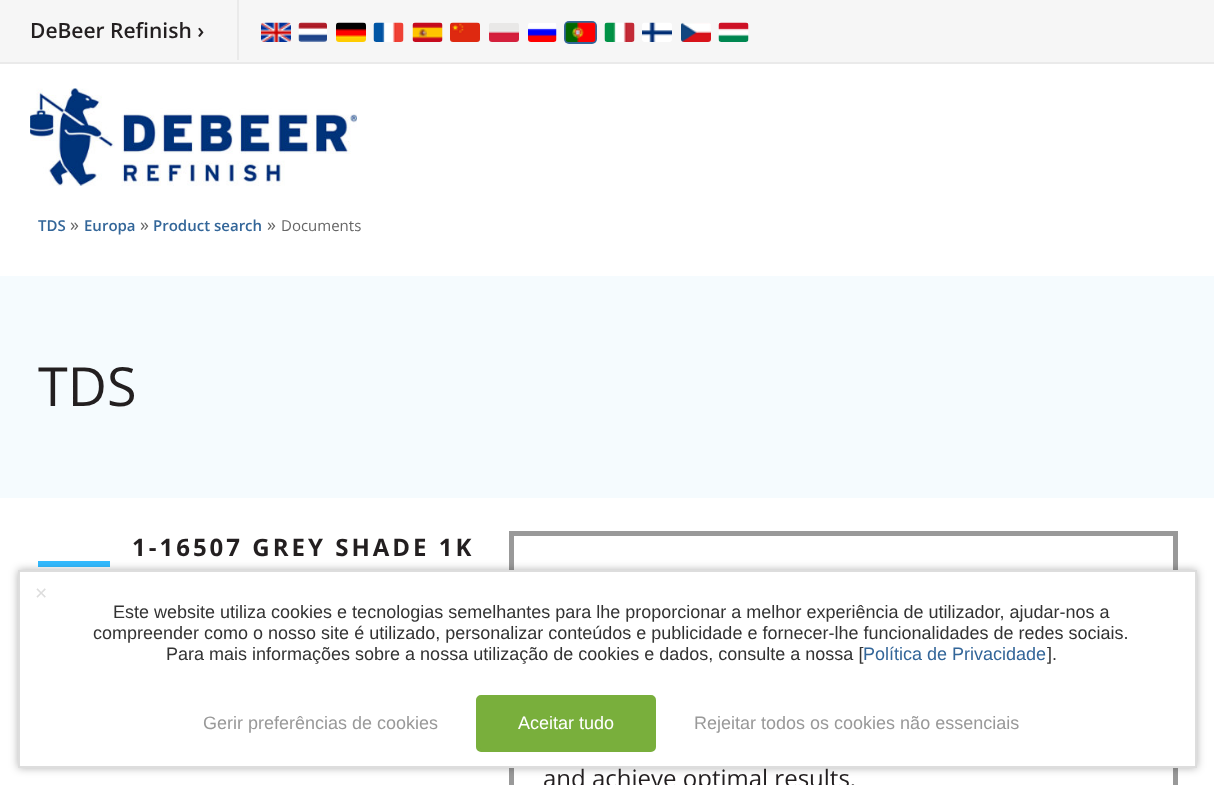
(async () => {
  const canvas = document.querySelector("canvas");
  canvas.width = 1214;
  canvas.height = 785;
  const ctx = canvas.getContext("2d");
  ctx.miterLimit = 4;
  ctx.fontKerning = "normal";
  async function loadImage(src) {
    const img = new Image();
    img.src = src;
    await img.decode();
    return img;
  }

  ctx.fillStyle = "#ffffff";
  ctx.fillRect(0, 0, 1214, 785);
  for (const [x, y, w, h, color] of [
    [0, 0, 1214, 62, "#f6f6f6"],
    [0, 62, 1214, 2, "#eaeaea"],
    [237, 0, 2, 60, "#eaeaea"],
  ]) {
    ctx.fillStyle = color;
    ctx.fillRect(x, y, w, h);
  }
  ctx.drawImage(await loadImage("img/1.png"), 261, 22, 30, 20);
  ctx.drawImage(await loadImage("img/2.png"), 298, 22, 29, 20);
  ctx.drawImage(await loadImage("img/3.png"), 336, 22, 30, 20);
  ctx.drawImage(await loadImage("img/4.png"), 373, 22, 31, 20);
  ctx.drawImage(await loadImage("img/5.png"), 412, 22, 31, 20);
  ctx.drawImage(await loadImage("img/6.png"), 450, 22, 30, 20);
  ctx.drawImage(await loadImage("img/7.png"), 489, 23, 30, 19);
  ctx.drawImage(await loadImage("img/8.png"), 528, 23, 29, 19);
  ctx.fillStyle = "#336699";
  ctx.beginPath();
  ctx.roundRect(564, 21, 33, 23, 5);
  ctx.fill();
  ctx.drawImage(await loadImage("img/9.png"), 565, 22, 31, 20);
  ctx.drawImage(await loadImage("img/10.png"), 604, 22, 31, 20);
  ctx.drawImage(await loadImage("img/11.png"), 642, 22, 30, 20);
  ctx.drawImage(await loadImage("img/12.png"), 681, 22, 30, 20);
  ctx.drawImage(await loadImage("img/13.png"), 718, 22, 31, 20);
  ctx.drawImage(await loadImage("img/14.png"), 30, 88, 327, 98);
  ctx.fillStyle = "#f5fbfe";
  ctx.fillRect(0, 276, 1214, 222);
  ctx.fillStyle = "#33bbff";
  ctx.fillRect(38, 561, 72, 6);
  ctx.strokeStyle = "#999999";
  ctx.lineWidth = 5;
  ctx.strokeRect(511.5, 533.5, 664, 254);
  ctx.fillStyle = "rgba(0, 0, 0, 0.3)";
  ctx.filter = "blur(4px)";
  ctx.beginPath();
  ctx.rect(18, 570, 1179, 198);
  ctx.fill();
  ctx.filter = "none";
  ctx.fillStyle = "#ffffff";
  ctx.beginPath();
  ctx.rect(19, 571, 1177, 196);
  ctx.fill();
  ctx.strokeStyle = "#dddddd";
  ctx.lineWidth = 2;
  ctx.stroke();
  ctx.fillStyle = "#79af3c";
  ctx.beginPath();
  ctx.roundRect(477.5, 696.5, 177, 54, 3.5);
  ctx.fill();
  ctx.strokeStyle = "#79af3c";
  ctx.lineWidth = 3;
  ctx.stroke();
  ctx.font = "600 21px Open Sans";
  ctx.fillStyle = "#231f20";
  ctx.fillText("DeBeer Refinish ›", 30, 38);
  ctx.font = "600 15px Open Sans";
  ctx.fillStyle = "#336699";
  ctx.fillText("TDS", 38, 231);
  ctx.font = "18px Open Sans";
  ctx.fillStyle = "#666666";
  ctx.fillText("»", 70, 231);
  ctx.font = "600 15px Open Sans";
  ctx.fillStyle = "#336699";
  ctx.fillText("Europa", 84, 231);
  ctx.font = "18px Open Sans";
  ctx.fillStyle = "#666666";
  ctx.fillText("»", 140, 231);
  ctx.font = "600 15px Open Sans";
  ctx.fillStyle = "#336699";
  ctx.fillText("Product search", 153, 231);
  ctx.font = "18px Open Sans";
  ctx.fillStyle = "#666666";
  ctx.fillText("»", 267, 231);
  ctx.font = "15px Open Sans";
  ctx.fillText("Documents", 281, 231);
  ctx.font = "54px Open Sans";
  ctx.fillStyle = "#231f20";
  ctx.fillText("TDS", 38, 406);
  ctx.letterSpacing = "3px";
  ctx.font = "bold 24px Open Sans";
  ctx.fillText("1-16507 GREY SHADE 1K", 132, 556);
  ctx.letterSpacing = "0px";
  ctx.font = "24px Open Sans";
  ctx.fillText("and achieve optimal results.", 543, 787);
  ctx.font = "21px Liberation Sans";
  ctx.fillStyle = "#dddddd";
  ctx.fillText("×", 35, 600);
  ctx.font = "18px Liberation Sans";
  ctx.fillStyle = "#333333";
  for (const [text, x, y] of [
    ["Este website utiliza cookies e tecnologias semelhantes para lhe proporcionar a melhor experiência de utilizador, ajudar-nos a", 113, 618],
    ["compreender como o nosso site é utilizado, personalizar conteúdos e publicidade e fornecer-lhe funcionalidades de redes sociais.", 93, 639],
    ["Para mais informações sobre a nossa utilização de cookies e dados, consulte a nossa [", 166, 660],
  ]) {
    ctx.fillText(text, x, y);
  }
  ctx.fillStyle = "#336699";
  ctx.fillText("Política de Privacidade", 863, 660);
  ctx.fillStyle = "#333333";
  ctx.fillText("].", 1047, 660);
  ctx.fillStyle = "#999999";
  ctx.fillText("Gerir preferências de cookies", 203, 729);
  ctx.fillStyle = "#ffffff";
  ctx.fillText("Aceitar tudo", 518, 729);
  ctx.fillStyle = "#999999";
  ctx.fillText("Rejeitar todos os cookies não essenciais", 694, 729);
})();
